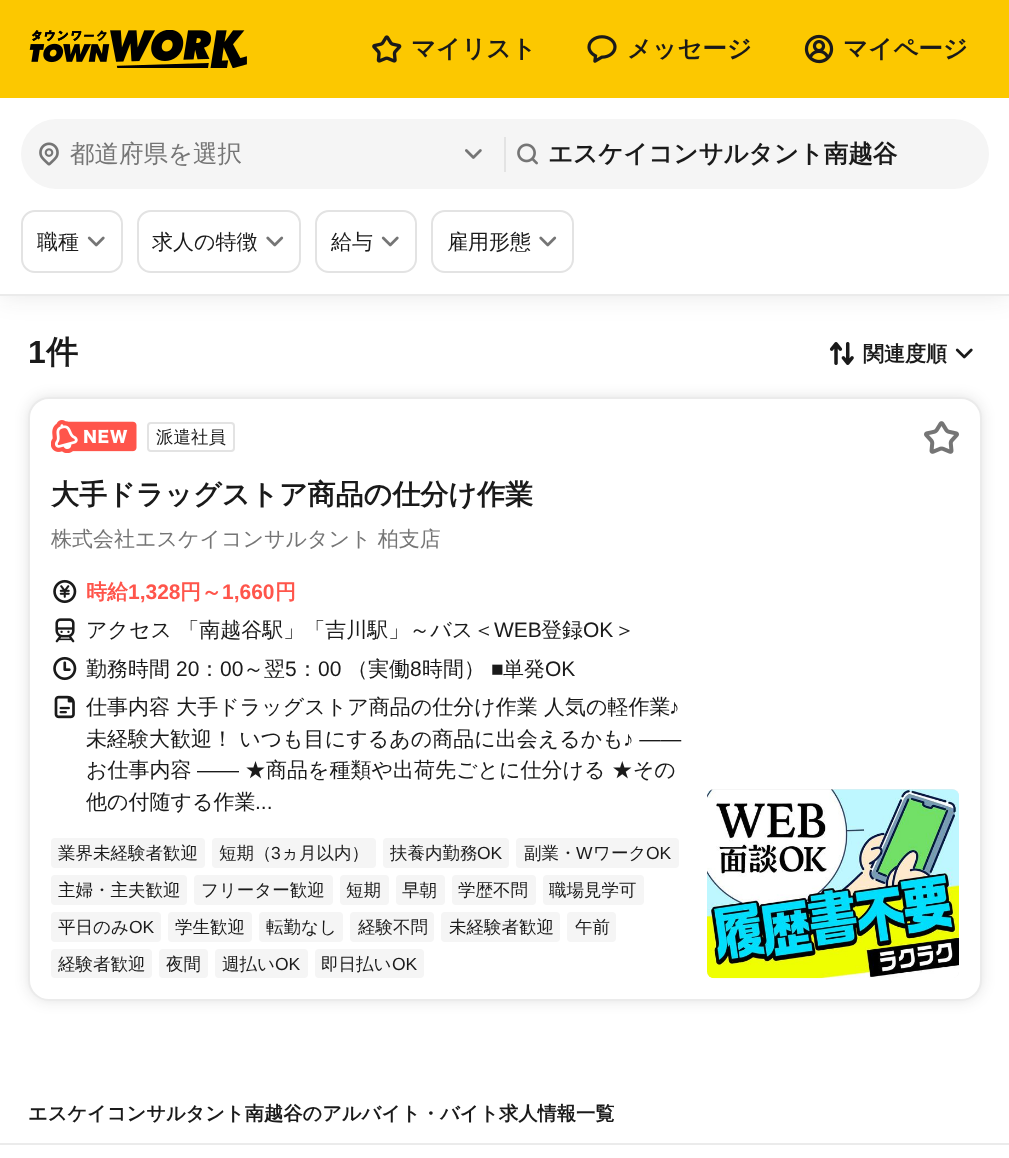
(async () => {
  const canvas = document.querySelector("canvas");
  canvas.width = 1009;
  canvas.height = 1158;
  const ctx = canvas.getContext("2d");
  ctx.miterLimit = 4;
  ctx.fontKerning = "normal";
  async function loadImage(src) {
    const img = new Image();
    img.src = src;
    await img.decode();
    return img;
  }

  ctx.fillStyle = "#ffffff";
  ctx.fillRect(0, 0, 1009, 1158);
  ctx.fillStyle = "rgba(26, 26, 26, 0.1)";
  ctx.filter = "blur(13px)";
  ctx.beginPath();
  ctx.rect(0, 98, 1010, 198);
  ctx.fill();
  ctx.filter = "none";
  ctx.fillStyle = "#fcc800";
  ctx.fillRect(0, 0, 1009, 98);
  ctx.drawImage(await loadImage("img/1.png"), 29, 30, 218, 38);
  ctx.drawImage(await loadImage("img/2.png"), 372, 35, 30, 28);
  ctx.drawImage(await loadImage("img/3.png"), 587, 35, 30, 28);
  ctx.drawImage(await loadImage("img/4.png"), 804, 34, 30, 30);
  ctx.fillStyle = "#ffffff";
  ctx.fillRect(0, 98, 1009, 196);
  ctx.fillStyle = "#ebebeb";
  ctx.fillRect(0, 294, 1009, 2);
  ctx.fillStyle = "#f5f5f5";
  ctx.beginPath();
  ctx.roundRect(21, 119, 968, 70, 35);
  ctx.fill();
  ctx.drawImage(await loadImage("img/5.png"), 39, 142, 20, 24);
  ctx.drawImage(await loadImage("img/6.png"), 465, 149, 17, 10);
  ctx.fillStyle = "#e3e3e3";
  ctx.fillRect(504, 137, 2, 35);
  ctx.drawImage(await loadImage("img/7.png"), 517, 143, 21, 22);
  ctx.beginPath();
  ctx.roundRect(22, 211, 100, 61, 13);
  ctx.strokeStyle = "#e3e3e3";
  ctx.lineWidth = 2;
  ctx.stroke();
  ctx.drawImage(await loadImage("img/8.png"), 87, 236, 18, 11);
  ctx.beginPath();
  ctx.roundRect(138, 211, 162, 61, 13);
  ctx.stroke();
  ctx.drawImage(await loadImage("img/9.png"), 266, 236, 18, 11);
  ctx.beginPath();
  ctx.roundRect(316, 211, 100, 61, 13);
  ctx.stroke();
  ctx.drawImage(await loadImage("img/8.png"), 381, 236, 18, 11);
  ctx.beginPath();
  ctx.roundRect(432, 211, 141, 61, 13);
  ctx.stroke();
  ctx.drawImage(await loadImage("img/9.png"), 539, 236, 18, 11);
  ctx.drawImage(await loadImage("img/10.png"), 829, 342, 25, 23);
  ctx.drawImage(await loadImage("img/11.png"), 955, 348, 18, 11);
  ctx.fillStyle = "rgba(26, 26, 26, 0.12)";
  ctx.filter = "blur(7px)";
  ctx.beginPath();
  ctx.roundRect(28, 397, 954, 604, 21);
  ctx.fill();
  ctx.filter = "none";
  ctx.fillStyle = "#ffffff";
  ctx.beginPath();
  ctx.roundRect(29, 398, 952, 602, 20);
  ctx.fill();
  ctx.strokeStyle = "#ebebeb";
  ctx.stroke();
  ctx.drawImage(await loadImage("img/12.png"), 51, 420, 86, 33);
  ctx.beginPath();
  ctx.roundRect(148, 423, 86, 28, 3);
  ctx.strokeStyle = "#e3e3e3";
  ctx.stroke();
  ctx.drawImage(await loadImage("img/13.png"), 924, 421, 35, 33);
  ctx.drawImage(await loadImage("img/14.png"), 53, 579, 24, 25);
  ctx.drawImage(await loadImage("img/15.png"), 55, 618, 20, 25);
  ctx.drawImage(await loadImage("img/16.png"), 53, 656, 24, 25);
  ctx.drawImage(await loadImage("img/17.png"), 54, 695, 21, 24);
  ctx.fillStyle = "#f5f5f5";
  ctx.beginPath();
  ctx.roundRect(51, 838, 154, 30, 4);
  ctx.fill();
  ctx.beginPath();
  ctx.roundRect(212, 838, 164, 30, 4);
  ctx.fill();
  ctx.beginPath();
  ctx.roundRect(383, 838, 126, 30, 4);
  ctx.fill();
  ctx.beginPath();
  ctx.roundRect(516, 838, 163, 30, 4);
  ctx.fill();
  ctx.beginPath();
  ctx.roundRect(51, 875, 136, 30, 4);
  ctx.fill();
  ctx.beginPath();
  ctx.roundRect(194, 875, 139, 30, 4);
  ctx.fill();
  ctx.beginPath();
  ctx.roundRect(340, 875, 49, 30, 4);
  ctx.fill();
  ctx.beginPath();
  ctx.roundRect(396, 875, 49, 30, 4);
  ctx.fill();
  ctx.beginPath();
  ctx.roundRect(452, 875, 84, 30, 4);
  ctx.fill();
  ctx.beginPath();
  ctx.roundRect(543, 875, 101, 30, 4);
  ctx.fill();
  ctx.beginPath();
  ctx.roundRect(51, 912, 110, 30, 4);
  ctx.fill();
  ctx.beginPath();
  ctx.roundRect(168, 912, 84, 30, 4);
  ctx.fill();
  ctx.beginPath();
  ctx.roundRect(259, 912, 84, 30, 4);
  ctx.fill();
  ctx.beginPath();
  ctx.roundRect(350, 912, 84, 30, 4);
  ctx.fill();
  ctx.beginPath();
  ctx.roundRect(441, 912, 119, 30, 4);
  ctx.fill();
  ctx.beginPath();
  ctx.roundRect(567, 912, 49, 30, 4);
  ctx.fill();
  ctx.beginPath();
  ctx.roundRect(51, 949, 101, 29, 4);
  ctx.fill();
  ctx.beginPath();
  ctx.roundRect(159, 949, 49, 29, 4);
  ctx.fill();
  ctx.beginPath();
  ctx.roundRect(215, 949, 93, 29, 4);
  ctx.fill();
  ctx.beginPath();
  ctx.roundRect(315, 949, 109, 29, 4);
  ctx.fill();
  ctx.fillStyle = "#ebebeb";
  ctx.beginPath();
  ctx.roundRect(707, 789, 252, 189, 7);
  ctx.fill();
  ctx.drawImage(await loadImage("img/18.png"), 707, 789, 252, 190);
  ctx.fillRect(0, 1143, 1009, 2);
  ctx.font = "bold 24.5px WenQuanYi Zen Hei";
  ctx.fillStyle = "#1a1a1a";
  for (const [text, x, y] of [
    ["マイリスト", 411, 57],
    ["メッセージ", 627, 57],
    ["マイページ", 843, 57],
  ]) {
    ctx.fillText(text, x, y);
  }
  ctx.font = "500 24.5px WenQuanYi Zen Hei";
  ctx.fillStyle = "#757575";
  ctx.fillText("都道府県を選択", 70, 162);
  ctx.font = "bold 24.5px WenQuanYi Zen Hei";
  ctx.fillStyle = "#1a1a1a";
  ctx.fillText("エスケイコンサルタント南越谷", 548, 162);
  ctx.font = "500 21px WenQuanYi Zen Hei";
  for (const [text, x, y] of [
    ["職種", 37, 249],
    ["求人の特徴", 152, 249],
    ["給与", 331, 249],
    ["雇用形態", 447, 249],
  ]) {
    ctx.fillText(text, x, y);
  }
  ctx.font = "bold 32px Liberation Sans";
  ctx.fillText("1", 28, 363);
  ctx.font = "bold 32px WenQuanYi Zen Hei";
  ctx.fillText("件", 46, 363);
  ctx.font = "bold 21px WenQuanYi Zen Hei";
  ctx.fillText("関連度順", 863, 361);
  ctx.font = "500 17.5px WenQuanYi Zen Hei";
  ctx.fillText("派遣社員", 156, 443);
  ctx.font = "bold 28px WenQuanYi Zen Hei";
  ctx.fillText("大手ドラッグストア商品の仕分け作業", 51, 504);
  ctx.font = "500 21px WenQuanYi Zen Hei";
  ctx.fillStyle = "#757575";
  ctx.fillText("株式会社エスケイコンサルタント 柏支店", 51, 546);
  ctx.font = "bold 21px WenQuanYi Zen Hei";
  ctx.fillStyle = "#ff554b";
  ctx.fillText("時給", 86, 599);
  ctx.font = "bold 21px Liberation Sans";
  ctx.fillText("1,328", 128, 599);
  ctx.font = "bold 21px WenQuanYi Zen Hei";
  ctx.fillText("円～", 180, 599);
  ctx.font = "bold 21px Liberation Sans";
  ctx.fillText("1,660", 222, 599);
  ctx.font = "bold 21px WenQuanYi Zen Hei";
  ctx.fillText("円", 275, 599);
  ctx.font = "500 21px WenQuanYi Zen Hei";
  ctx.fillStyle = "#1a1a1a";
  ctx.fillText("アクセス 「南越谷駅」「吉川駅」～バス＜", 86, 637);
  ctx.font = "21px Liberation Sans";
  ctx.fillText("WEB", 494, 637);
  ctx.font = "500 21px WenQuanYi Zen Hei";
  ctx.fillText("登録", 541, 637);
  ctx.font = "21px Liberation Sans";
  ctx.fillText("OK", 583, 637);
  ctx.font = "500 21px WenQuanYi Zen Hei";
  ctx.fillText("＞", 614, 637);
  ctx.fillText("勤務時間", 86, 676);
  ctx.font = "21px Liberation Sans";
  ctx.fillText("20", 176, 676);
  ctx.font = "500 21px WenQuanYi Zen Hei";
  ctx.fillText("：", 199, 676);
  ctx.font = "21px Liberation Sans";
  ctx.fillText("00", 220, 676);
  ctx.font = "500 21px WenQuanYi Zen Hei";
  ctx.fillText("～翌", 243, 676);
  ctx.font = "21px Liberation Sans";
  ctx.fillText("5", 285, 676);
  ctx.font = "500 21px WenQuanYi Zen Hei";
  ctx.fillText("：", 297, 676);
  ctx.font = "21px Liberation Sans";
  ctx.fillText("00", 318, 676);
  ctx.font = "500 21px WenQuanYi Zen Hei";
  ctx.fillText("（実働", 347, 676);
  ctx.font = "21px Liberation Sans";
  ctx.fillText("8", 410, 676);
  ctx.font = "500 21px WenQuanYi Zen Hei";
  ctx.fillText("時間）", 422, 676);
  ctx.font = "21px Liberation Sans";
  ctx.fillText("■", 491, 676);
  ctx.font = "500 21px WenQuanYi Zen Hei";
  ctx.fillText("単発", 503, 676);
  ctx.font = "21px Liberation Sans";
  ctx.fillText("OK", 545, 676);
  ctx.font = "500 21px WenQuanYi Zen Hei";
  ctx.fillText("仕事内容 大手ドラッグストア商品の仕分け作業 人気の軽作業", 86, 714);
  ctx.font = "21px Liberation Sans";
  ctx.fillText("♪", 669, 714);
  ctx.font = "500 21px WenQuanYi Zen Hei";
  ctx.fillText("未経験大歓迎！ いつも目にするあの商品に出会えるかも", 86, 746);
  ctx.font = "21px Liberation Sans";
  ctx.fillText("♪ ――", 623, 746);
  ctx.font = "500 21px WenQuanYi Zen Hei";
  ctx.fillText("お仕事内容", 86, 777);
  ctx.font = "21px Liberation Sans";
  ctx.fillText("――", 197, 777);
  ctx.font = "500 21px WenQuanYi Zen Hei";
  ctx.fillText("★商品を種類や出荷先ごとに仕分ける ★その", 245, 777);
  ctx.fillText("他の付随する作業", 86, 809);
  ctx.font = "21px Liberation Sans";
  ctx.fillText("...", 255, 809);
  ctx.font = "500 17.5px WenQuanYi Zen Hei";
  ctx.fillText("業界未経験者歓迎", 58, 859);
  ctx.fillText("短期（", 219, 859);
  ctx.font = "17.5px Liberation Sans";
  ctx.fillText("3", 271, 859);
  ctx.font = "500 17.5px WenQuanYi Zen Hei";
  ctx.fillText("ヵ月以内）", 281, 859);
  ctx.fillText("扶養内勤務", 390, 859);
  ctx.font = "17.5px Liberation Sans";
  ctx.fillText("OK", 477, 859);
  ctx.font = "500 17.5px WenQuanYi Zen Hei";
  ctx.fillText("副業・", 524, 859);
  ctx.font = "17.5px Liberation Sans";
  ctx.fillText("W", 576, 859);
  ctx.font = "500 17.5px WenQuanYi Zen Hei";
  ctx.fillText("ワーク", 593, 859);
  ctx.font = "17.5px Liberation Sans";
  ctx.fillText("OK", 646, 859);
  ctx.font = "500 17.5px WenQuanYi Zen Hei";
  for (const [text, x, y] of [
    ["主婦・主夫歓迎", 58, 896],
    ["フリーター歓迎", 201, 896],
    ["短期", 346, 896],
    ["早朝", 402, 896],
    ["学歴不問", 458, 896],
    ["職場見学可", 549, 896],
    ["平日のみ", 58, 933],
  ]) {
    ctx.fillText(text, x, y);
  }
  ctx.font = "17.5px Liberation Sans";
  ctx.fillText("OK", 129, 933);
  ctx.font = "500 17.5px WenQuanYi Zen Hei";
  for (const [text, x, y] of [
    ["学生歓迎", 175, 933],
    ["転勤なし", 266, 933],
    ["経験不問", 358, 933],
    ["未経験者歓迎", 449, 933],
    ["午前", 575, 933],
    ["経験者歓迎", 58, 970],
    ["夜間", 166, 970],
    ["週払い", 222, 970],
  ]) {
    ctx.fillText(text, x, y);
  }
  ctx.font = "17.5px Liberation Sans";
  ctx.fillText("OK", 275, 970);
  ctx.font = "500 17.5px WenQuanYi Zen Hei";
  ctx.fillText("即日払い", 321, 970);
  ctx.font = "17.5px Liberation Sans";
  ctx.fillText("OK", 392, 970);
  ctx.font = "bold 19.25px WenQuanYi Zen Hei";
  ctx.fillText("エスケイコンサルタント南越谷のアルバイト・バイト求人情報一覧", 28, 1120);
})();
